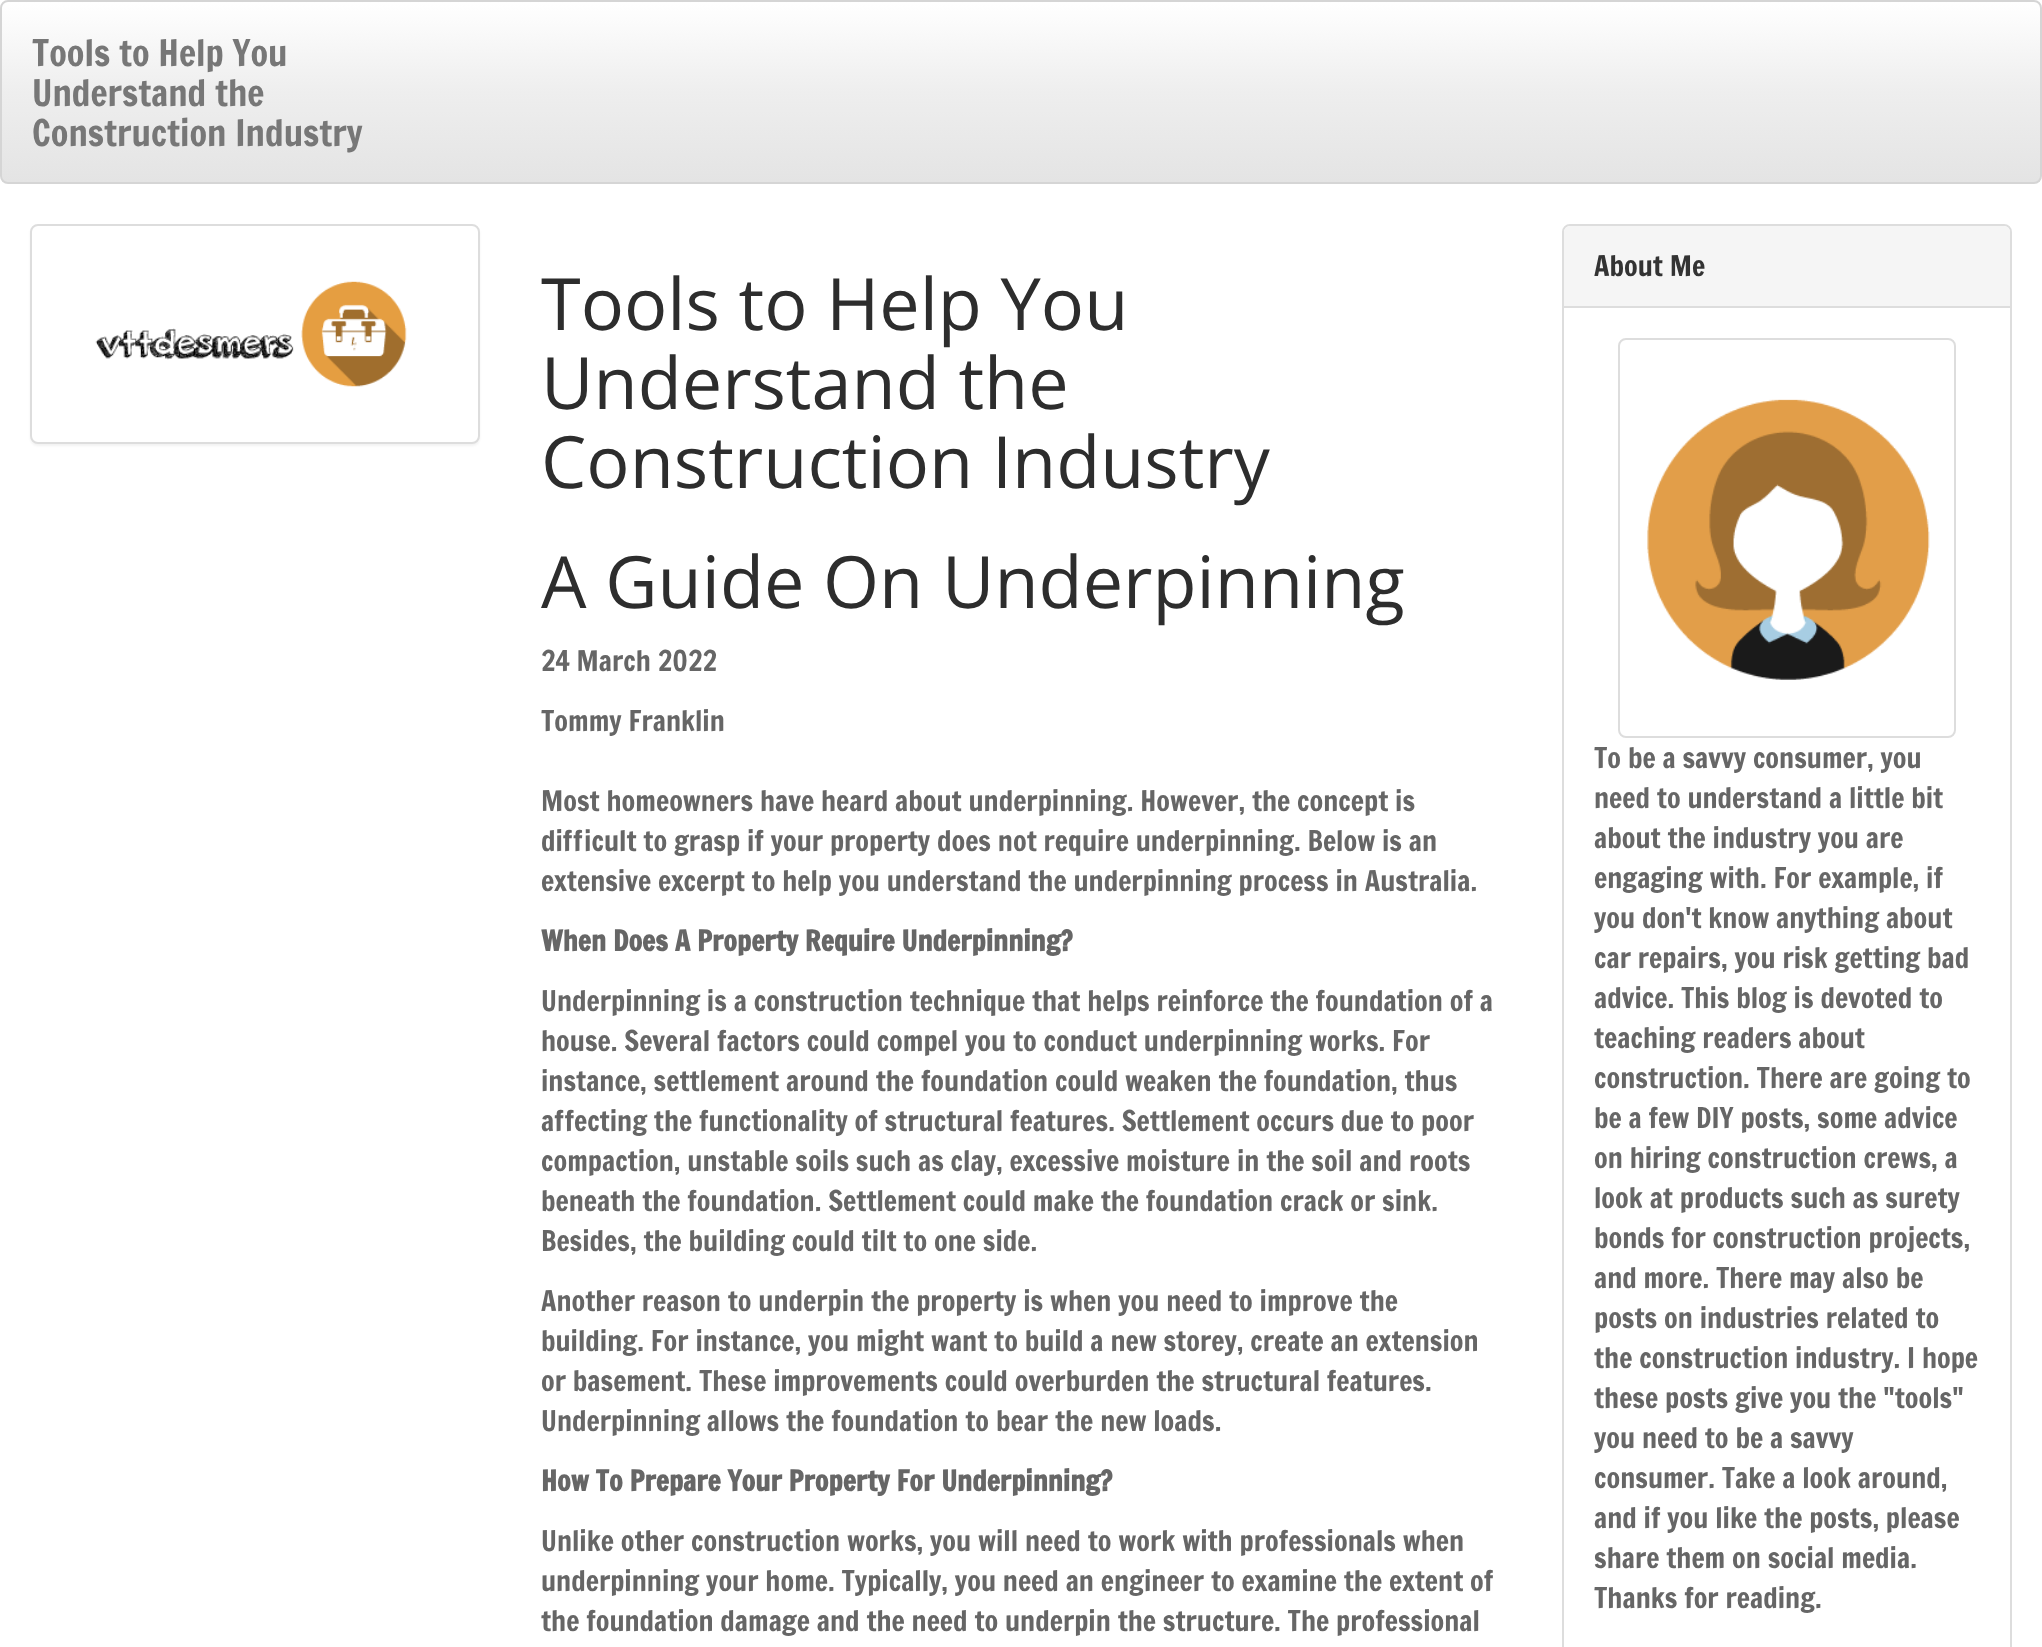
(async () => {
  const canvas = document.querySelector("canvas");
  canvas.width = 2042;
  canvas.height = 1647;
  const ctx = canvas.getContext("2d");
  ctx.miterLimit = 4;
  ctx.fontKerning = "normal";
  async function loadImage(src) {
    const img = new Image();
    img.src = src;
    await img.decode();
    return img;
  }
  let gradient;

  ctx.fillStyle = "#ffffff";
  ctx.fillRect(0, 0, 2042, 1647);
  ctx.save();
  ctx.beginPath();
  ctx.roundRect(0, 0, 2042, 184, 8);
  ctx.clip();
  gradient = ctx.createLinearGradient(1021, 2, 1021, 182);
  gradient.addColorStop(0, "#ffffff");
  gradient.addColorStop(0.5, "#eeeeee");
  gradient.addColorStop(1, "#e4e4e4");
  ctx.fillStyle = gradient;
  ctx.fillRect(2, 2, 2038, 180);
  ctx.restore();
  ctx.beginPath();
  ctx.roundRect(1, 1, 2040, 182, 7);
  ctx.strokeStyle = "#d5d5d5";
  ctx.lineWidth = 2;
  ctx.stroke();
  ctx.fillStyle = "rgba(0, 0, 0, 0.05)";
  ctx.filter = "blur(1px)";
  ctx.beginPath();
  ctx.roundRect(30, 226, 450, 220, 8);
  ctx.fill();
  ctx.filter = "none";
  ctx.fillStyle = "#ffffff";
  ctx.beginPath();
  ctx.roundRect(31, 225, 448, 218, 7);
  ctx.fill();
  ctx.strokeStyle = "#dddddd";
  ctx.stroke();
  ctx.drawImage(await loadImage("img/1.png"), 95, 281, 312, 106);
  ctx.beginPath();
  ctx.roundRect(1563, 225, 448, 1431, 7);
  ctx.stroke();
  ctx.fillStyle = "#f5f5f5";
  ctx.beginPath();
  ctx.roundRect(1564, 226, 446, 82, [6, 6, 0, 0]);
  ctx.fill();
  ctx.fillStyle = "#dddddd";
  ctx.fillRect(1564, 306, 446, 2);
  ctx.beginPath();
  ctx.roundRect(1619, 339, 336, 398, 7);
  ctx.stroke();
  ctx.drawImage(await loadImage("img/2.png"), 1647, 399, 283, 281);
  ctx.font = "36px Francois One";
  ctx.fillStyle = "#777777";
  for (const [text, x, y] of [
    ["Tools to Help You", 32, 66],
    ["Understand the", 32, 106],
    ["Construction Industry", 32, 146],
  ]) {
    ctx.fillText(text, x, y);
  }
  ctx.font = "72px Open Sans";
  ctx.fillStyle = "#2d2d2d";
  for (const [text, x, y] of [
    ["Tools to Help You", 541, 330],
    ["Understand the", 541, 409],
    ["Construction Industry", 541, 488],
    ["A Guide On Underpinning", 541, 608],
  ]) {
    ctx.fillText(text, x, y);
  }
  ctx.font = "28px Francois One";
  ctx.fillStyle = "#666666";
  for (const [text, x, y] of [
    ["24 March 2022", 541, 671],
    ["Tommy Franklin", 541, 731],
    ["Most homeowners have heard about underpinning. However, the concept is", 541, 811],
    ["difficult to grasp if your property does not require underpinning. Below is an", 541, 851],
    ["extensive excerpt to help you understand the underpinning process in Australia.", 541, 891],
  ]) {
    ctx.fillText(text, x, y);
  }
  ctx.font = "bold 28px Francois One";
  ctx.fillText("When Does A Property Require Underpinning?", 541, 951);
  ctx.font = "28px Francois One";
  for (const [text, x, y] of [
    ["Underpinning is a construction technique that helps reinforce the foundation of a", 541, 1011],
    ["house. Several factors could compel you to conduct underpinning works. For", 541, 1051],
    ["instance, settlement around the foundation could weaken the foundation, thus", 541, 1091],
    ["affecting the functionality of structural features. Settlement occurs due to poor", 541, 1131],
    ["compaction, unstable soils such as clay, excessive moisture in the soil and roots", 541, 1171],
    ["beneath the foundation. Settlement could make the foundation crack or sink.", 541, 1211],
    ["Besides, the building could tilt to one side.", 541, 1251],
    ["Another reason to underpin the property is when you need to improve the", 541, 1311],
    ["building. For instance, you might want to build a new storey, create an extension", 541, 1351],
    ["or basement. These improvements could overburden the structural features.", 541, 1391],
    ["Underpinning allows the foundation to bear the new loads.", 541, 1431],
  ]) {
    ctx.fillText(text, x, y);
  }
  ctx.font = "bold 28px Francois One";
  ctx.fillText("How To Prepare Your Property For Underpinning?", 541, 1491);
  ctx.font = "28px Francois One";
  for (const [text, x, y] of [
    ["Unlike other construction works, you will need to work with professionals when", 541, 1551],
    ["underpinning your home. Typically, you need an engineer to examine the extent of", 541, 1591],
    ["the foundation damage and the need to underpin the structure. The professional", 541, 1631],
  ]) {
    ctx.fillText(text, x, y);
  }
  ctx.fillStyle = "#333333";
  ctx.fillText("About Me", 1594, 276);
  ctx.fillStyle = "#666666";
  for (const [text, x, y] of [
    ["To be a savvy consumer, you", 1594, 768],
    ["need to understand a little bit", 1594, 808],
    ["about the industry you are", 1594, 848],
    ["engaging with. For example, if", 1594, 888],
    ["you don't know anything about", 1594, 928],
    ["car repairs, you risk getting bad", 1594, 968],
    ["advice. This blog is devoted to", 1594, 1008],
    ["teaching readers about", 1594, 1048],
    ["construction. There are going to", 1594, 1088],
    ["be a few DIY posts, some advice", 1594, 1128],
    ["on hiring construction crews, a", 1594, 1168],
    ["look at products such as surety", 1594, 1208],
    ["bonds for construction projects,", 1594, 1248],
    ["and more. There may also be", 1594, 1288],
    ["posts on industries related to", 1594, 1328],
    ["the construction industry. I hope", 1594, 1368],
    ["these posts give you the \"tools\"", 1594, 1408],
    ["you need to be a savvy", 1594, 1448],
    ["consumer. Take a look around,", 1594, 1488],
    ["and if you like the posts, please", 1594, 1528],
    ["share them on social media.", 1594, 1568],
    ["Thanks for reading.", 1594, 1608],
  ]) {
    ctx.fillText(text, x, y);
  }
})();
